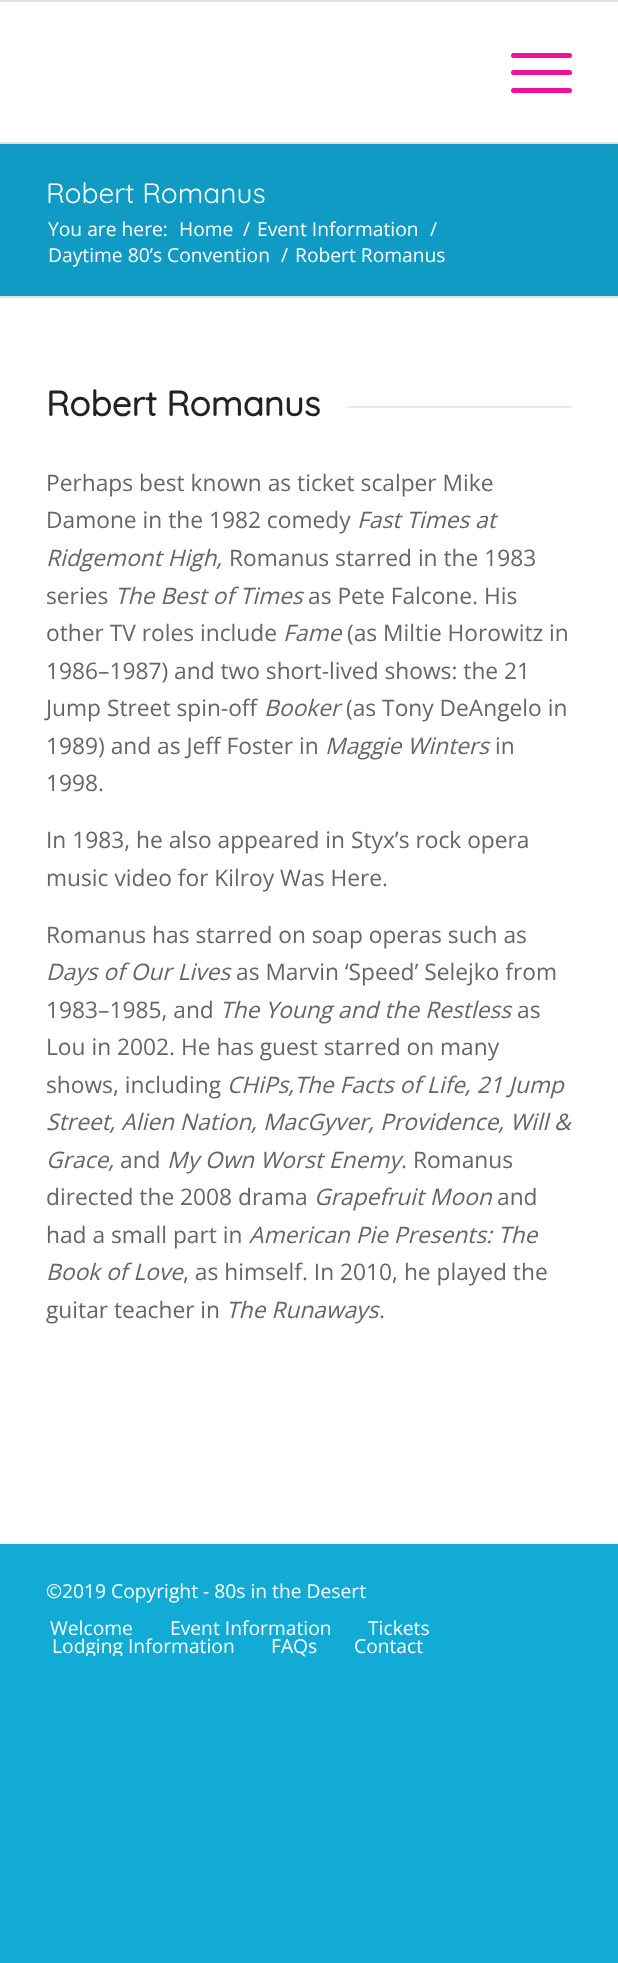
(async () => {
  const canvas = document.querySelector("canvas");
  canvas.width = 618;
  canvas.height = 1963;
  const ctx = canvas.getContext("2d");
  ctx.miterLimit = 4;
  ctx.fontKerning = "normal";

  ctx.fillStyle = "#11abd6";
  ctx.fillRect(0, 0, 618, 1963);
  for (const [x, y, w, h, color] of [
    [0, 0, 618, 2, "#e1e1e1"],
    [0, 142, 618, 2, "#e1e1e1"],
    [0, 2, 618, 140, "#ffffff"],
  ]) {
    ctx.fillStyle = color;
    ctx.fillRect(x, y, w, h);
  }
  ctx.fillStyle = "#ec1399";
  ctx.beginPath();
  ctx.roundRect(511, 70, 61, 5, 2.5);
  ctx.fill();
  ctx.beginPath();
  ctx.roundRect(511, 53, 61, 5, 2.5);
  ctx.fill();
  ctx.beginPath();
  ctx.roundRect(511, 88, 61, 5, 2.5);
  ctx.fill();
  for (const [x, y, w, h, color] of [
    [0, 298, 618, 1246, "#ffffff"],
    [0, 144, 618, 152, "#109bc5"],
    [0, 296, 618, 2, "#e1e1e1"],
    [347, 406, 225, 2, "#e8e8e8"],
  ]) {
    ctx.fillStyle = color;
    ctx.fillRect(x, y, w, h);
  }
  ctx.font = "300 28px Quicksand";
  ctx.fillStyle = "#ffffff";
  ctx.fillText("Robert Romanus", 46, 203);
  ctx.font = "19.25px Open Sans";
  for (const [text, x, y] of [
    ["You are here:", 48, 236],
    ["Home", 179, 236],
    ["/", 243, 236],
    ["Event Information", 257, 236],
    ["/", 430, 236],
    ["Daytime 80’s Convention", 48, 262],
    ["/", 281, 262],
    ["Robert Romanus", 295, 262],
  ]) {
    ctx.fillText(text, x, y);
  }
  ctx.font = "bold 35px Quicksand";
  ctx.fillStyle = "#222222";
  ctx.fillText("Robert Romanus", 46, 416);
  ctx.font = "22.75px Open Sans";
  ctx.fillStyle = "#666666";
  ctx.fillText("Perhaps best known as ticket scalper Mike", 46, 491);
  ctx.fillText("Damone in the 1982 comedy", 46, 528);
  ctx.font = "italic 22.75px Open Sans";
  ctx.fillText("Fast Times at", 357, 528);
  ctx.fillText("Ridgemont High,", 46, 566);
  ctx.font = "22.75px Open Sans";
  ctx.fillText("Romanus starred in the 1983", 229, 566);
  ctx.fillText("series", 46, 604);
  ctx.font = "italic 22.75px Open Sans";
  ctx.fillText("The Best of Times", 115, 604);
  ctx.font = "22.75px Open Sans";
  ctx.fillText("as Pete Falcone. His", 308, 604);
  ctx.fillText("other TV roles include", 46, 641);
  ctx.font = "italic 22.75px Open Sans";
  ctx.fillText("Fame", 283, 641);
  ctx.font = "22.75px Open Sans";
  for (const [text, x, y] of [
    ["(as Miltie Horowitz in", 347, 641],
    ["1986–1987) and two short-lived shows: the 21", 46, 679],
    ["Jump Street spin-off", 46, 716],
  ]) {
    ctx.fillText(text, x, y);
  }
  ctx.font = "italic 22.75px Open Sans";
  ctx.fillText("Booker", 264, 716);
  ctx.font = "22.75px Open Sans";
  ctx.fillText("(as Tony DeAngelo in", 346, 716);
  ctx.fillText("1989) and as Jeff Foster in", 46, 754);
  ctx.font = "italic 22.75px Open Sans";
  ctx.fillText("Maggie Winters", 325, 754);
  ctx.font = "22.75px Open Sans";
  for (const [text, x, y] of [
    ["in", 495, 754],
    ["1998.", 46, 791],
    ["In 1983, he also appeared in Styx’s rock opera", 46, 848],
    ["music video for Kilroy Was Here.", 46, 886],
    ["Romanus has starred on soap operas such as", 46, 943],
  ]) {
    ctx.fillText(text, x, y);
  }
  ctx.font = "italic 22.75px Open Sans";
  ctx.fillText("Days of Our Lives", 46, 980);
  ctx.font = "22.75px Open Sans";
  ctx.fillText("as Marvin ‘Speed’ Selejko from", 236, 980);
  ctx.fillText("1983–1985, and", 46, 1018);
  ctx.font = "italic 22.75px Open Sans";
  ctx.fillText("The Young and the Restless", 220, 1018);
  ctx.font = "22.75px Open Sans";
  for (const [text, x, y] of [
    ["as", 517, 1018],
    ["Lou in 2002. He has guest starred on many", 46, 1055],
    ["shows, including", 46, 1093],
  ]) {
    ctx.fillText(text, x, y);
  }
  ctx.font = "italic 22.75px Open Sans";
  for (const [text, x, y] of [
    ["CHiPs,The Facts of Life, 21 Jump", 227, 1093],
    ["Street, Alien Nation, MacGyver, Providence, Will &", 46, 1130],
    ["Grace,", 46, 1168],
  ]) {
    ctx.fillText(text, x, y);
  }
  ctx.font = "22.75px Open Sans";
  ctx.fillText("and", 120, 1168);
  ctx.font = "italic 22.75px Open Sans";
  ctx.fillText("My Own Worst Enemy", 167, 1168);
  ctx.font = "22.75px Open Sans";
  ctx.fillText(". Romanus", 401, 1168);
  ctx.fillText("directed the 2008 drama", 46, 1205);
  ctx.font = "italic 22.75px Open Sans";
  ctx.fillText("Grapefruit Moon", 314, 1205);
  ctx.font = "22.75px Open Sans";
  ctx.fillText("and", 497, 1205);
  ctx.fillText("had a small part in", 46, 1243);
  ctx.font = "italic 22.75px Open Sans";
  ctx.fillText("American Pie Presents: The", 249, 1243);
  ctx.fillText("Book of Love", 46, 1280);
  ctx.font = "22.75px Open Sans";
  ctx.fillText(", as himself. In 2010, he played the", 183, 1280);
  ctx.fillText("guitar teacher in", 46, 1318);
  ctx.font = "italic 22.75px Open Sans";
  ctx.fillText("The Runaways", 226, 1318);
  ctx.font = "22.75px Open Sans";
  ctx.fillText(".", 379, 1318);
  ctx.font = "19.25px Open Sans";
  ctx.fillStyle = "#ffffff";
  for (const [text, x, y] of [
    ["©2019 Copyright - 80s in the Desert", 46, 1598],
    ["Welcome", 50, 1635],
    ["Event Information", 170, 1635],
    ["Tickets", 368, 1635],
  ]) {
    ctx.fillText(text, x, y);
  }
  ctx.save();
  ctx.beginPath();
  ctx.rect(21, 1610, 525, 46);
  ctx.clip();
  ctx.fillText("Lodging Information", 52, 1653);
  ctx.restore();
  ctx.fillText("FAQs", 271, 1653);
  ctx.fillText("Contact", 354, 1653);
})();
